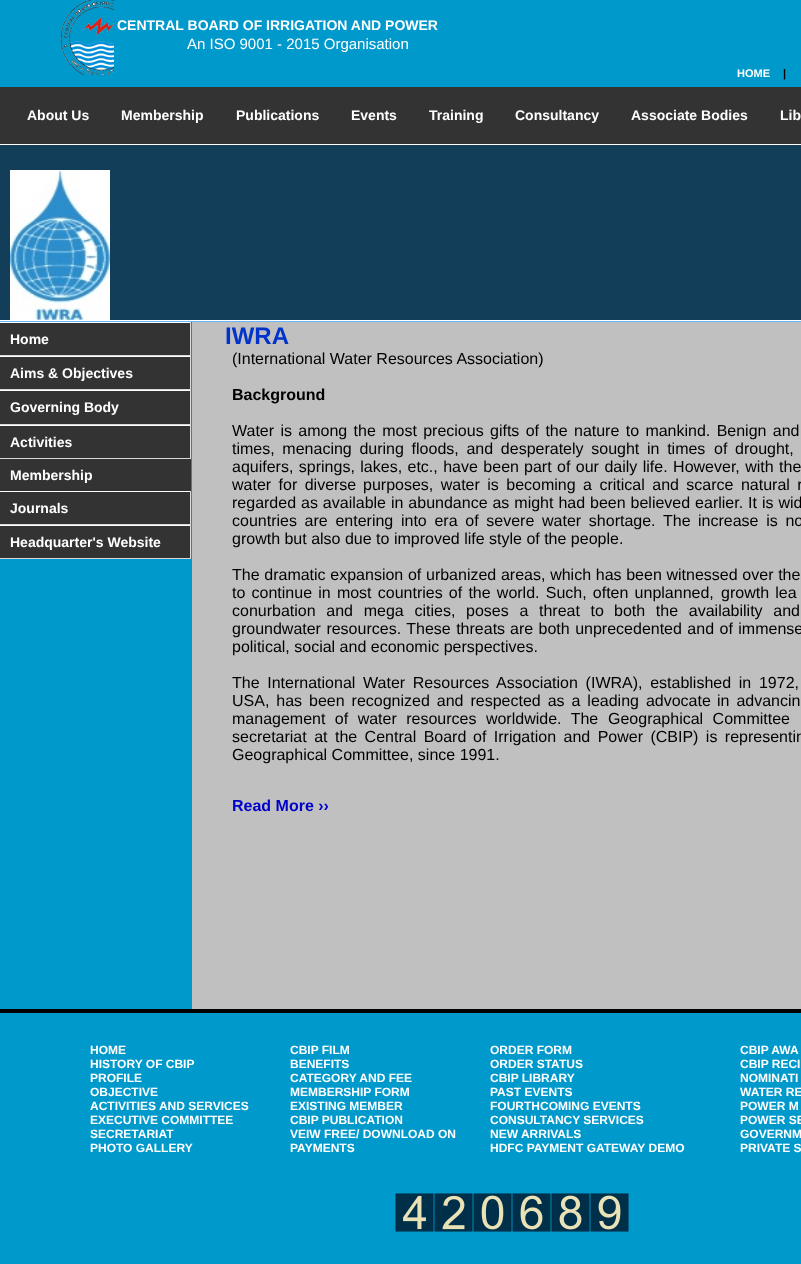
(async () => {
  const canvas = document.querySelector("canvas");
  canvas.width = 801;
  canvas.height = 1264;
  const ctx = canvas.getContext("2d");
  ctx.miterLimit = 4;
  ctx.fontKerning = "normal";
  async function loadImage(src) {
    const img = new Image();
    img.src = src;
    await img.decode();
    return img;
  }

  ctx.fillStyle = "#ffffff";
  ctx.fillRect(0, 0, 801, 1264);
  ctx.fillStyle = "#0099cc";
  ctx.fillRect(0, 0, 801, 87);
  ctx.drawImage(await loadImage("img/1.png"), 60, 0, 54, 75);
  ctx.fillStyle = "#333333";
  ctx.fillRect(0, 87, 801, 57);
  ctx.fillStyle = "#123e59";
  ctx.fillRect(0, 145, 801, 175);
  ctx.drawImage(await loadImage("img/2.png"), 10, 170, 100, 150);
  for (const [x, y, w, h, color] of [
    [0, 321, 801, 1, "#64b6fd"],
    [192, 322, 609, 687, "#c0c0c0"],
    [0, 1009, 801, 4, "#000000"],
    [0, 322, 192, 687, "#0099cc"],
    [0, 323, 190, 32, "#333333"],
    [0, 322, 191, 1, "#ffffff"],
    [190, 322, 1, 34, "#d9d9d9"],
    [0, 355, 191, 1, "#d9d9d9"],
    [0, 357, 190, 32, "#333333"],
    [0, 356, 191, 1, "#ffffff"],
    [190, 356, 1, 34, "#d9d9d9"],
    [0, 389, 191, 1, "#d9d9d9"],
    [0, 391, 190, 33, "#333333"],
    [0, 390, 191, 1, "#ffffff"],
    [190, 390, 1, 35, "#d9d9d9"],
    [0, 424, 191, 1, "#d9d9d9"],
    [0, 426, 190, 32, "#333333"],
    [0, 425, 191, 1, "#ffffff"],
    [190, 425, 1, 34, "#d9d9d9"],
    [0, 458, 191, 1, "#d9d9d9"],
    [0, 459, 191, 32, "#333333"],
    [0, 492, 190, 32, "#333333"],
    [0, 491, 191, 1, "#ffffff"],
    [190, 491, 1, 34, "#d9d9d9"],
    [0, 524, 191, 1, "#d9d9d9"],
    [0, 526, 190, 32, "#333333"],
    [0, 525, 191, 1, "#ffffff"],
    [190, 525, 1, 34, "#d9d9d9"],
    [0, 558, 191, 1, "#d9d9d9"],
    [0, 1013, 801, 251, "#0099cc"],
  ]) {
    ctx.fillStyle = color;
    ctx.fillRect(x, y, w, h);
  }
  ctx.drawImage(await loadImage("img/3.png"), 395, 1193, 234, 39);
  ctx.font = "bold 14px Liberation Sans";
  ctx.fillStyle = "#ffffff";
  ctx.fillText("CENTRAL BOARD OF IRRIGATION AND POWER", 117, 30);
  ctx.font = "15px Liberation Sans";
  ctx.fillText("An ISO 9001 - 2015 Organisation", 187, 49);
  ctx.font = "bold 11px Liberation Sans";
  ctx.fillText("HOME", 737, 77);
  ctx.fillStyle = "#000000";
  ctx.fillText("|", 783, 77);
  ctx.font = "bold 14px Liberation Sans";
  ctx.fillStyle = "#ffffff";
  for (const [text, x, y] of [
    ["About Us", 27, 120],
    ["Membership", 121, 120],
    ["Publications", 236, 120],
    ["Events", 351, 120],
    ["Training", 429, 120],
    ["Consultancy", 515, 120],
    ["Associate Bodies", 631, 120],
    ["Lib", 780, 120],
    ["Home", 10, 344],
    ["Aims & Objectives", 10, 378],
    ["Governing Body", 10, 412],
    ["Activities", 10, 447],
    ["Membership", 10, 480],
    ["Journals", 10, 513],
    ["Headquarter's Website", 10, 547],
  ]) {
    ctx.fillText(text, x, y);
  }
  ctx.font = "bold 24px Liberation Sans";
  ctx.fillStyle = "#0033cc";
  ctx.fillText("IWRA", 225, 344);
  ctx.font = "16px Liberation Sans";
  ctx.fillStyle = "#000000";
  ctx.fillText("(International Water Resources Association)", 232, 364);
  ctx.font = "bold 16px Liberation Sans";
  ctx.fillText("Background", 232, 400);
  ctx.wordSpacing = "1.9px";
  ctx.font = "16px Liberation Sans";
  ctx.fillText("Water is among the most precious gifts of the nature to mankind. Benign and", 232, 436);
  ctx.wordSpacing = "3.25px";
  ctx.fillText("times, menacing during floods, and desperately sought in times", 232, 454);
  ctx.fillText("of drought,", 714, 454);
  ctx.wordSpacing = "1px";
  ctx.fillText("aquifers, springs, lakes, etc., have been", 232, 472);
  ctx.fillText("part of our daily life. However, with the", 524, 472);
  ctx.wordSpacing = "3px";
  ctx.fillText("water for diverse", 232, 490);
  ctx.fillText("purposes, water is becoming a critical and scarce natural r", 363, 490);
  ctx.wordSpacing = "0.5px";
  ctx.fillText("regarded as available in abundance as might had been believed earlier. It is wid", 232, 508);
  ctx.wordSpacing = "3.25px";
  ctx.fillText("countries are entering into era of severe water shortage. The", 232, 526);
  ctx.fillText("increase is no", 698, 526);
  ctx.wordSpacing = "0px";
  ctx.fillText("growth but also due to improved life style of the people.", 232, 544);
  ctx.wordSpacing = "0.25px";
  ctx.fillText("The dramatic expansion of urbanized areas, which has been witnessed over the", 232, 580);
  ctx.wordSpacing = "1.75px";
  ctx.fillText("to continue in most countries of the world. Such, often unplanned,", 232, 598);
  ctx.fillText("growth lea", 721, 598);
  ctx.wordSpacing = "6.25px";
  ctx.fillText("conurbation and mega cities, poses a threat to", 232, 616);
  ctx.fillText("both the availability and", 614, 616);
  ctx.wordSpacing = "1px";
  ctx.fillText("groundwater resources. These threats", 232, 634);
  ctx.fillText("are both unprecedented and of immense", 510, 634);
  ctx.wordSpacing = "0px";
  ctx.fillText("political, social and economic perspectives.", 232, 652);
  ctx.wordSpacing = "3.25px";
  ctx.fillText("The International Water Resources Association (IWRA), established in 1972,", 232, 688);
  ctx.wordSpacing = "2.5px";
  ctx.fillText("USA, has been recognized and respected as a leading advocate", 232, 706);
  ctx.fillText("in advancin", 717, 706);
  ctx.wordSpacing = "5px";
  ctx.fillText("management of water resources worldwide. The", 232, 724);
  ctx.fillText("Geographical Committee", 608, 724);
  ctx.wordSpacing = "3px";
  ctx.fillText("secretariat at the Central Board", 232, 742);
  ctx.fillText("of Irrigation and Power (CBIP) is representin", 473, 742);
  ctx.wordSpacing = "0px";
  ctx.fillText("Geographical Committee, since 1991.", 232, 760);
  ctx.font = "bold 16px Liberation Sans";
  ctx.fillStyle = "#0000cc";
  ctx.fillText("Read More ››", 232, 811);
  ctx.font = "bold 12px Liberation Sans";
  ctx.fillStyle = "#ffffff";
  for (const [text, x, y] of [
    ["HOME", 90, 1054],
    ["HISTORY OF CBIP", 90, 1068],
    ["PROFILE", 90, 1082],
    ["OBJECTIVE", 90, 1096],
    ["ACTIVITIES AND SERVICES", 90, 1110],
    ["EXECUTIVE COMMITTEE", 90, 1124],
    ["SECRETARIAT", 90, 1138],
    ["PHOTO GALLERY", 90, 1152],
    ["CBIP FILM", 290, 1054],
    ["BENEFITS", 290, 1068],
    ["CATEGORY AND FEE", 290, 1082],
    ["MEMBERSHIP FORM", 290, 1096],
    ["EXISTING MEMBER", 290, 1110],
    ["CBIP PUBLICATION", 290, 1124],
    ["VEIW FREE/ DOWNLOAD ON", 290, 1138],
    ["PAYMENTS", 290, 1152],
    ["ORDER FORM", 490, 1054],
    ["ORDER STATUS", 490, 1068],
    ["CBIP LIBRARY", 490, 1082],
    ["PAST EVENTS", 490, 1096],
    ["FOURTHCOMING EVENTS", 490, 1110],
    ["CONSULTANCY SERVICES", 490, 1124],
    ["NEW ARRIVALS", 490, 1138],
    ["HDFC PAYMENT GATEWAY DEMO", 490, 1152],
    ["CBIP AWA", 740, 1054],
    ["CBIP RECI", 740, 1068],
    ["NOMINATI", 740, 1082],
    ["WATER RE", 740, 1096],
    ["POWER M", 740, 1110],
    ["POWER SE", 740, 1124],
    ["GOVERNM", 740, 1138],
    ["PRIVATE S", 740, 1152],
  ]) {
    ctx.fillText(text, x, y);
  }
})();
